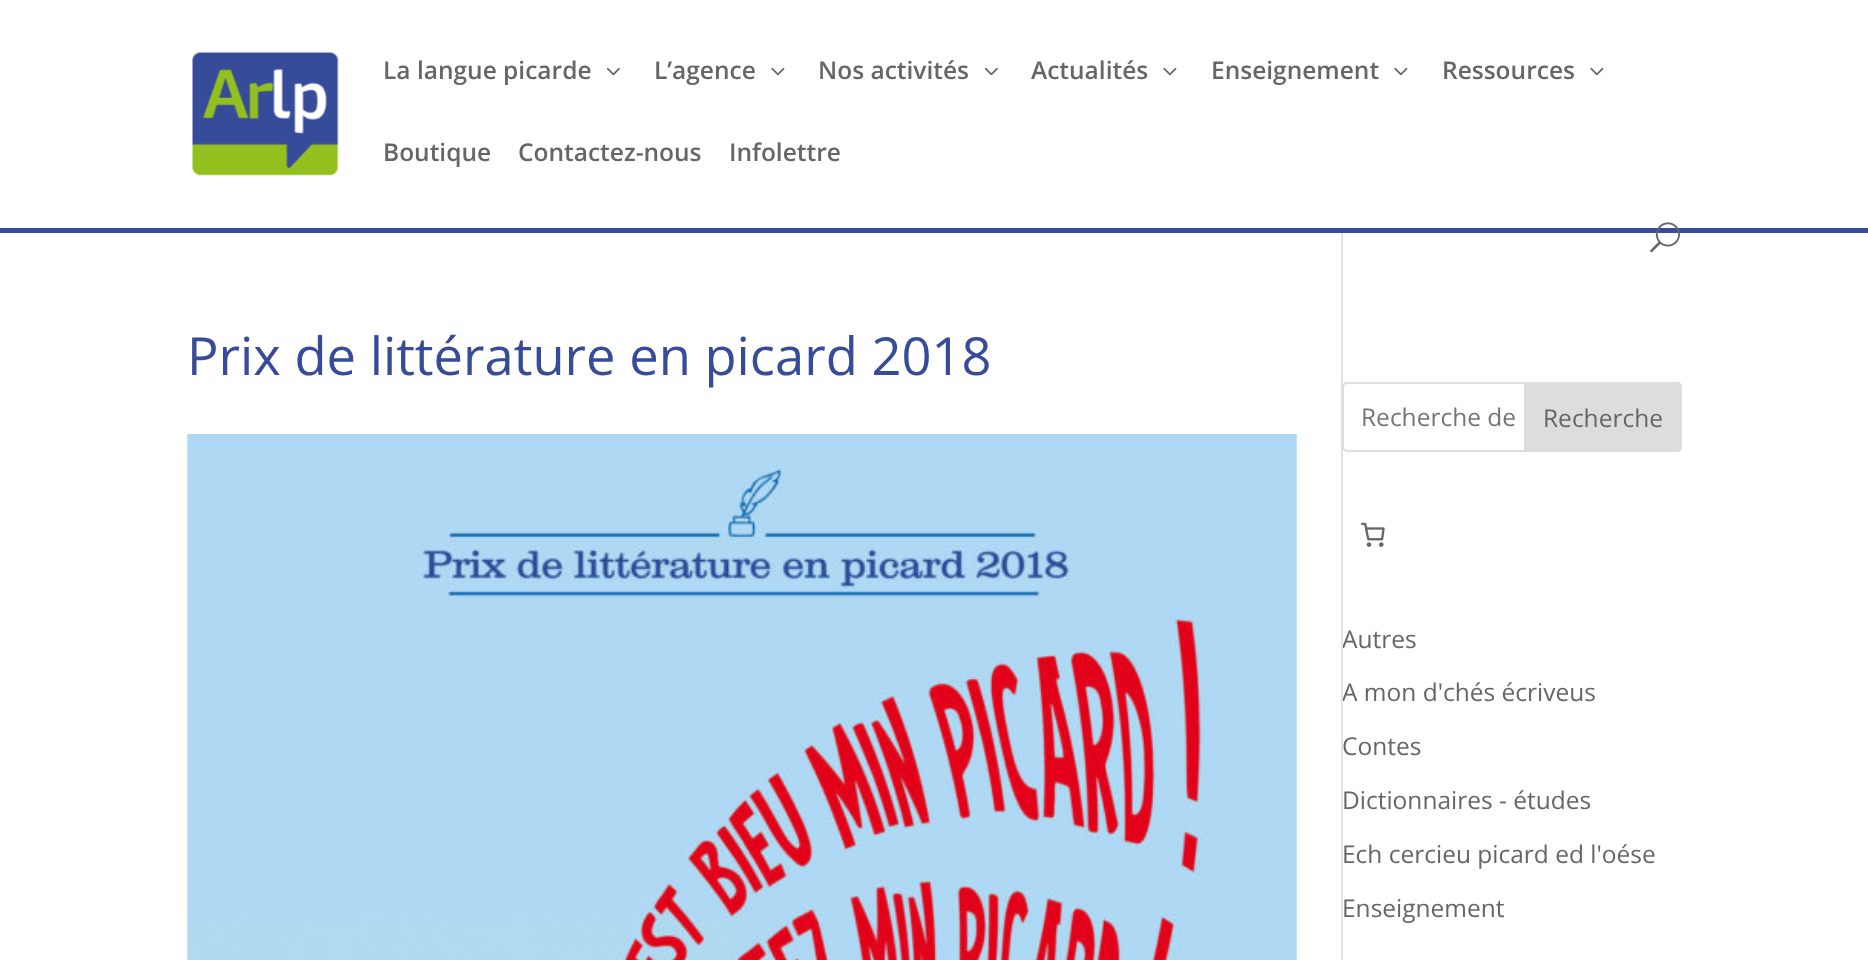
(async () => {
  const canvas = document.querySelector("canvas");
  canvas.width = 1868;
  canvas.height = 960;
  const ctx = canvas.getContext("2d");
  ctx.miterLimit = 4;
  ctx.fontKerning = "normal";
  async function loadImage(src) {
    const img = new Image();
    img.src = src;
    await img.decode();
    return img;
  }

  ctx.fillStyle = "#ffffff";
  ctx.fillRect(0, 0, 1868, 960);
  ctx.drawImage(await loadImage("img/1.png"), 192, 51, 147, 125);
  ctx.drawImage(await loadImage("img/2.png"), 606, 67, 14, 9);
  ctx.drawImage(await loadImage("img/3.png"), 771, 67, 14, 9);
  ctx.drawImage(await loadImage("img/2.png"), 984, 67, 14, 9);
  ctx.drawImage(await loadImage("img/3.png"), 1163, 67, 14, 9);
  ctx.drawImage(await loadImage("img/3.png"), 1394, 67, 14, 9);
  ctx.drawImage(await loadImage("img/3.png"), 1590, 67, 14, 9);
  ctx.drawImage(await loadImage("img/5.png"), 187, 434, 1110, 526);
  ctx.drawImage(await loadImage("img/6.png"), 1361, 522, 24, 25);
  ctx.font = "600 24.5px Open Sans";
  ctx.fillStyle = "#666666";
  for (const [text, x, y] of [
    ["La langue picarde", 383, 79],
    ["L’agence", 654, 79],
    ["Nos activités", 818, 79],
    ["Actualités", 1031, 79],
    ["Enseignement", 1211, 79],
    ["Ressources", 1442, 79],
    ["Boutique", 383, 161],
    ["Contactez-nous", 518, 161],
    ["Infolettre", 729, 161],
  ]) {
    ctx.fillText(text, x, y);
  }
  ctx.font = "52.5px Open Sans";
  ctx.fillStyle = "#364b99";
  ctx.fillText("Prix de littérature en picard 2018", 187, 375);
  ctx.font = "24.5px Open Sans";
  ctx.fillStyle = "#666666";
  ctx.fillText("Autres", 1342, 648);
  ctx.fillText("A mon d'chés écriveus", 1342, 701);
  ctx.fillStyle = "#e2e2e2";
  ctx.fillRect(1341, 228, 2, 732);
  ctx.fillStyle = "#364b99";
  ctx.fillRect(0, 228, 1868, 5);
  ctx.drawImage(await loadImage("img/4.png"), 1650, 222, 30, 31);
  ctx.fillStyle = "#ffffff";
  ctx.beginPath();
  ctx.roundRect(1343, 383, 338, 68, 4);
  ctx.fill();
  ctx.strokeStyle = "#dddddd";
  ctx.lineWidth = 2;
  ctx.stroke();
  ctx.fillStyle = "#dddddd";
  ctx.beginPath();
  ctx.roundRect(1525, 383, 156, 68, [0, 4, 4, 0]);
  ctx.fill();
  ctx.stroke();
  ctx.fillStyle = "#666666";
  ctx.fillText("Recherche", 1543, 427);
  ctx.fillStyle = "#757575";
  ctx.fillText("Recherche de", 1361, 426);
  ctx.fillStyle = "#666666";
  for (const [text, x, y] of [
    ["Contes", 1342, 755],
    ["Dictionnaires - études", 1342, 809],
    ["Ech cercieu picard ed l'oése", 1342, 863],
    ["Enseignement", 1342, 917],
  ]) {
    ctx.fillText(text, x, y);
  }
})();
